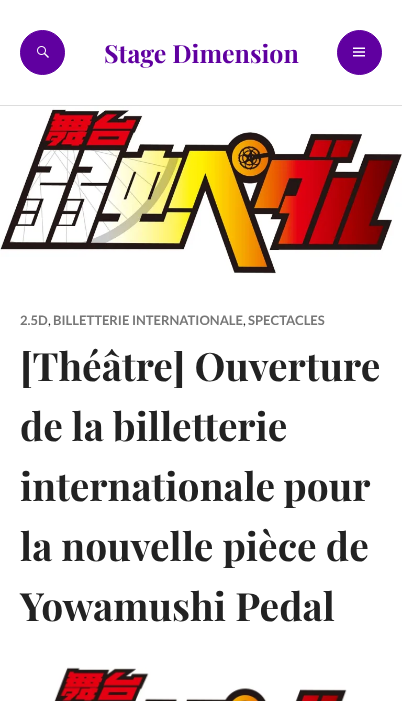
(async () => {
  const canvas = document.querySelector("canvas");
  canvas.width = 402;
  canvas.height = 701;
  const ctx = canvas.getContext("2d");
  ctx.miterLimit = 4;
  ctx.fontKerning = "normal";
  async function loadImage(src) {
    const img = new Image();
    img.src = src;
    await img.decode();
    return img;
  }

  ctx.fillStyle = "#ffffff";
  ctx.fillRect(0, 0, 402, 701);
  ctx.fillStyle = "#dddddd";
  ctx.fillRect(0, 105, 402, 1);
  ctx.fillStyle = "#6000a0";
  ctx.beginPath();
  ctx.arc(42.5, 52.5, 22, 0, Math.PI * 2);
  ctx.fill();
  ctx.strokeStyle = "#6000a0";
  ctx.stroke();
  ctx.drawImage(await loadImage("img/1.png"), 37, 46, 12, 12);
  ctx.beginPath();
  ctx.arc(359.5, 52.5, 22, 0, Math.PI * 2);
  ctx.fill();
  ctx.stroke();
  ctx.drawImage(await loadImage("img/2.png"), 353, 47, 12, 10);
  ctx.drawImage(await loadImage("img/3.png"), 0, 106, 402, 169);
  ctx.drawImage(await loadImage("img/4.png"), 54, 667, 293, 34);
  ctx.font = "bold 25px Playfair Display";
  ctx.fillText("Stage Dimension", 104, 63);
  ctx.font = "bold 13px Lato";
  ctx.fillStyle = "#777777";
  ctx.fillText("2.5D", 20, 325);
  ctx.font = "13px Lato";
  ctx.fillStyle = "#222222";
  ctx.fillText(",", 48, 325);
  ctx.font = "bold 13px Lato";
  ctx.fillStyle = "#777777";
  ctx.fillText("BILLETTERIE INTERNATIONALE", 53, 325);
  ctx.font = "13px Lato";
  ctx.fillStyle = "#222222";
  ctx.fillText(",", 243, 325);
  ctx.font = "bold 13px Lato";
  ctx.fillStyle = "#777777";
  ctx.fillText("SPECTACLES", 248, 325);
  ctx.font = "bold 39px Playfair Display";
  ctx.fillStyle = "#222222";
  ctx.fillText("[Théâtre] Ouverture", 20, 381);
  ctx.fillText("de la billetterie", 20, 441);
  ctx.wordSpacing = "-1px";
  ctx.fillText("internationale pour", 20, 501);
  ctx.wordSpacing = "0px";
  ctx.fillText("la nouvelle pièce de", 20, 561);
  ctx.fillText("Yowamushi Pedal", 20, 621);
})();
